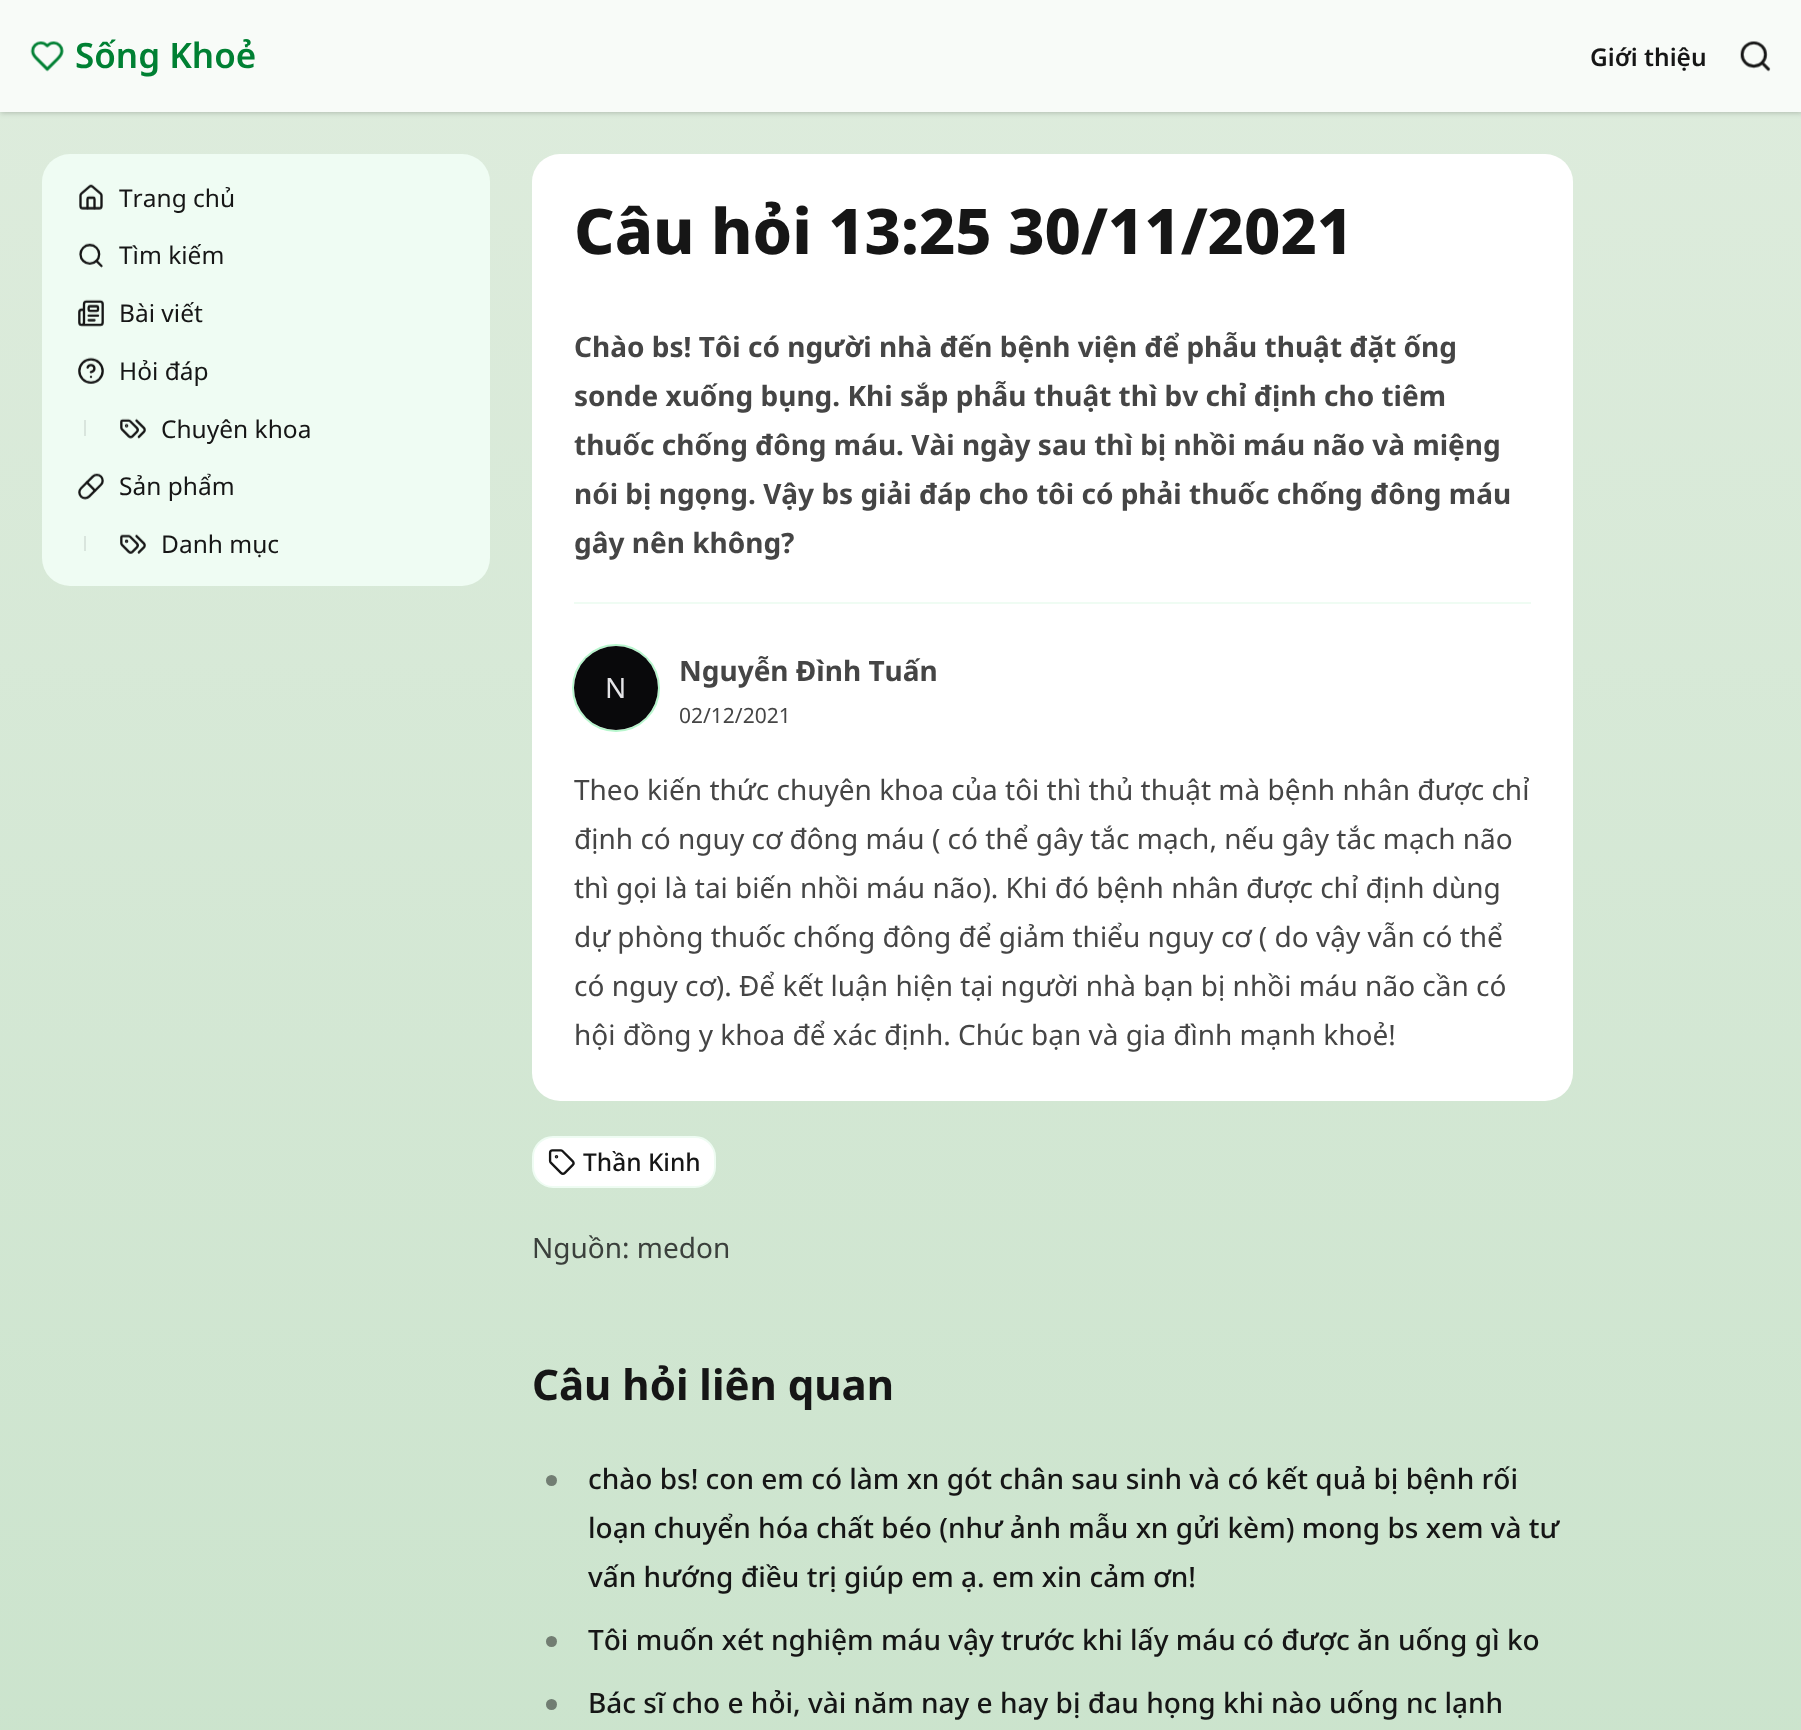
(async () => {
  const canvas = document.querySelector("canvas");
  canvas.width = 1801;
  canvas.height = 1730;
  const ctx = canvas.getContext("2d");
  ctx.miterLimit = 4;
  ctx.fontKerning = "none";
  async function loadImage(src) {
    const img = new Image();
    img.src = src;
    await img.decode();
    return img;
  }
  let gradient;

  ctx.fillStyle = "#ffffff";
  ctx.fillRect(0, 0, 1801, 1730);
  gradient = ctx.createLinearGradient(901, 0, 901, 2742);
  gradient.addColorStop(0, "#deecdd");
  gradient.addColorStop(1, "#c1dfc4");
  ctx.fillStyle = gradient;
  ctx.fillRect(0, 112, 1801, 1618);
  ctx.fillStyle = "rgba(0, 0, 0, 0.1)";
  ctx.filter = "blur(2px)";
  ctx.beginPath();
  ctx.rect(2, 4, 1799, 108);
  ctx.fill();
  ctx.filter = "none";
  ctx.filter = "blur(2.5px)";
  ctx.beginPath();
  ctx.rect(0, 2, 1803, 112);
  ctx.fill();
  ctx.filter = "none";
  ctx.fillStyle = "#f8fbf8";
  ctx.fillRect(0, 0, 1801, 112);
  ctx.drawImage(await loadImage("img/1.png"), 30, 41, 34, 31);
  ctx.drawImage(await loadImage("img/2.png"), 1740, 41, 31, 31);
  ctx.fillStyle = "#effcf3";
  ctx.beginPath();
  ctx.roundRect(42, 154, 448, 432, 28);
  ctx.fill();
  ctx.drawImage(await loadImage("img/3.png"), 79, 184, 24, 26);
  ctx.drawImage(await loadImage("img/4.png"), 79, 243, 24, 25);
  ctx.drawImage(await loadImage("img/5.png"), 78, 299, 26, 28);
  ctx.drawImage(await loadImage("img/6.png"), 78, 357, 26, 27);
  ctx.fillStyle = "#d9e5dd";
  ctx.fillRect(84, 420, 2, 16);
  ctx.drawImage(await loadImage("img/7.png"), 120, 418, 26, 21);
  ctx.drawImage(await loadImage("img/8.png"), 78, 473, 26, 27);
  ctx.fillRect(84, 536, 2, 15);
  ctx.drawImage(await loadImage("img/9.png"), 120, 534, 26, 20);
  ctx.fillStyle = "#ffffff";
  ctx.beginPath();
  ctx.roundRect(532, 154, 1041, 947, 28);
  ctx.fill();
  ctx.fillStyle = "#effcf3";
  ctx.fillRect(574, 602, 957, 2);
  ctx.beginPath();
  ctx.arc(616, 688, 43, 0, Math.PI * 2);
  ctx.strokeStyle = "#b7f6cd";
  ctx.lineWidth = 2;
  ctx.stroke();
  ctx.fillStyle = "#09090b";
  ctx.beginPath();
  ctx.arc(616, 688, 42, 0, Math.PI * 2);
  ctx.fill();
  ctx.fillStyle = "#ffffff";
  ctx.beginPath();
  ctx.roundRect(533, 1137, 182, 50, 20);
  ctx.fill();
  ctx.strokeStyle = "#effcf3";
  ctx.stroke();
  ctx.drawImage(await loadImage("img/10.png"), 548, 1149, 27, 26);
  ctx.fillStyle = "#727e73";
  ctx.beginPath();
  ctx.arc(551.5, 1480.5, 5.5, 0, Math.PI * 2);
  ctx.fill();
  ctx.fillStyle = "#727d72";
  ctx.beginPath();
  ctx.arc(551.5, 1641.5, 5.5, 0, Math.PI * 2);
  ctx.fill();
  ctx.fillStyle = "#717d72";
  ctx.beginPath();
  ctx.arc(551.5, 1704.5, 5.5, 0, Math.PI * 2);
  ctx.fill();
  ctx.font = "600 35px Noto Sans";
  ctx.fillStyle = "#008033";
  ctx.fillText("Sống Khoẻ", 75, 68);
  ctx.font = "600 24.5px Noto Sans";
  ctx.fillStyle = "#161616";
  ctx.fillText("Giới thiệu", 1590, 66);
  ctx.font = "24.5px Noto Sans";
  for (const [text, x, y] of [
    ["Trang chủ", 119, 207],
    ["Tìm kiếm", 119, 264],
    ["Bài viết", 119, 322],
    ["Hỏi đáp", 119, 380],
    ["Chuyên khoa", 161, 438],
    ["Sản phẩm", 119, 495],
    ["Danh mục", 161, 553],
  ]) {
    ctx.fillText(text, x, y);
  }
  ctx.font = "800 63px Noto Sans";
  ctx.fillText("Câu hỏi 13:25 30/11/2021", 574, 254);
  ctx.font = "bold 28px Noto Sans";
  ctx.fillStyle = "#454545";
  for (const [text, x, y] of [
    ["Chào bs! Tôi có người nhà đến bệnh viện để phẫu thuật đặt ống", 574, 357],
    ["sonde xuống bụng. Khi sắp phẫu thuật thì bv chỉ định cho tiêm", 574, 406],
    ["thuốc chống đông máu. Vài ngày sau thì bị nhồi máu não và miệng", 574, 455],
    ["nói bị ngọng. Vậy bs giải đáp cho tôi có phải thuốc chống đông máu", 574, 504],
    ["gây nên không?", 574, 553],
  ]) {
    ctx.fillText(text, x, y);
  }
  ctx.font = "28px Noto Sans";
  ctx.fillStyle = "#e4e4e7";
  ctx.fillText("N", 605, 698);
  ctx.font = "bold 28px Noto Sans";
  ctx.fillStyle = "#454545";
  ctx.fillText("Nguyễn Đình Tuấn", 679, 681);
  ctx.font = "21px Noto Sans";
  ctx.fillText("02/12/2021", 679, 723);
  ctx.font = "28px Noto Sans";
  for (const [text, x, y] of [
    ["Theo kiến thức chuyên khoa của tôi thì thủ thuật mà bệnh nhân được chỉ", 574, 800],
    ["định có nguy cơ đông máu ( có thể gây tắc mạch, nếu gây tắc mạch não", 574, 849],
    ["thì gọi là tai biến nhồi máu não). Khi đó bệnh nhân được chỉ định dùng", 574, 898],
    ["dự phòng thuốc chống đông để giảm thiểu nguy cơ ( do vậy vẫn có thể", 574, 947],
    ["có nguy cơ). Để kết luận hiện tại người nhà bạn bị nhồi máu não cần có", 574, 996],
    ["hội đồng y khoa để xác định. Chúc bạn và gia đình mạnh khoẻ!", 574, 1045],
  ]) {
    ctx.fillText(text, x, y);
  }
  ctx.font = "500 24.5px Noto Sans";
  ctx.fillStyle = "#161616";
  ctx.fillText("Thần Kinh", 583, 1171);
  ctx.font = "28px Noto Sans";
  ctx.fillStyle = "#3b403c";
  ctx.fillText("Nguồn: medon", 532, 1258);
  ctx.font = "bold 42px Noto Sans";
  ctx.fillStyle = "#161616";
  ctx.fillText("Câu hỏi liên quan", 532, 1400);
  ctx.font = "500 28px Noto Sans";
  for (const [text, x, y] of [
    ["chào bs! con em có làm xn gót chân sau sinh và có kết quả bị bệnh rối", 588, 1489],
    ["loạn chuyển hóa chất béo (như ảnh mẫu xn gửi kèm) mong bs xem và tư", 588, 1538],
    ["vấn hướng điều trị giúp em ạ. em xin cảm ơn!", 588, 1587],
    ["Tôi muốn xét nghiệm máu vậy trước khi lấy máu có được ăn uống gì ko", 588, 1650],
    ["Bác sĩ cho e hỏi, vài năm nay e hay bị đau họng khi nào uống nc lạnh", 588, 1713],
  ]) {
    ctx.fillText(text, x, y);
  }
})();
